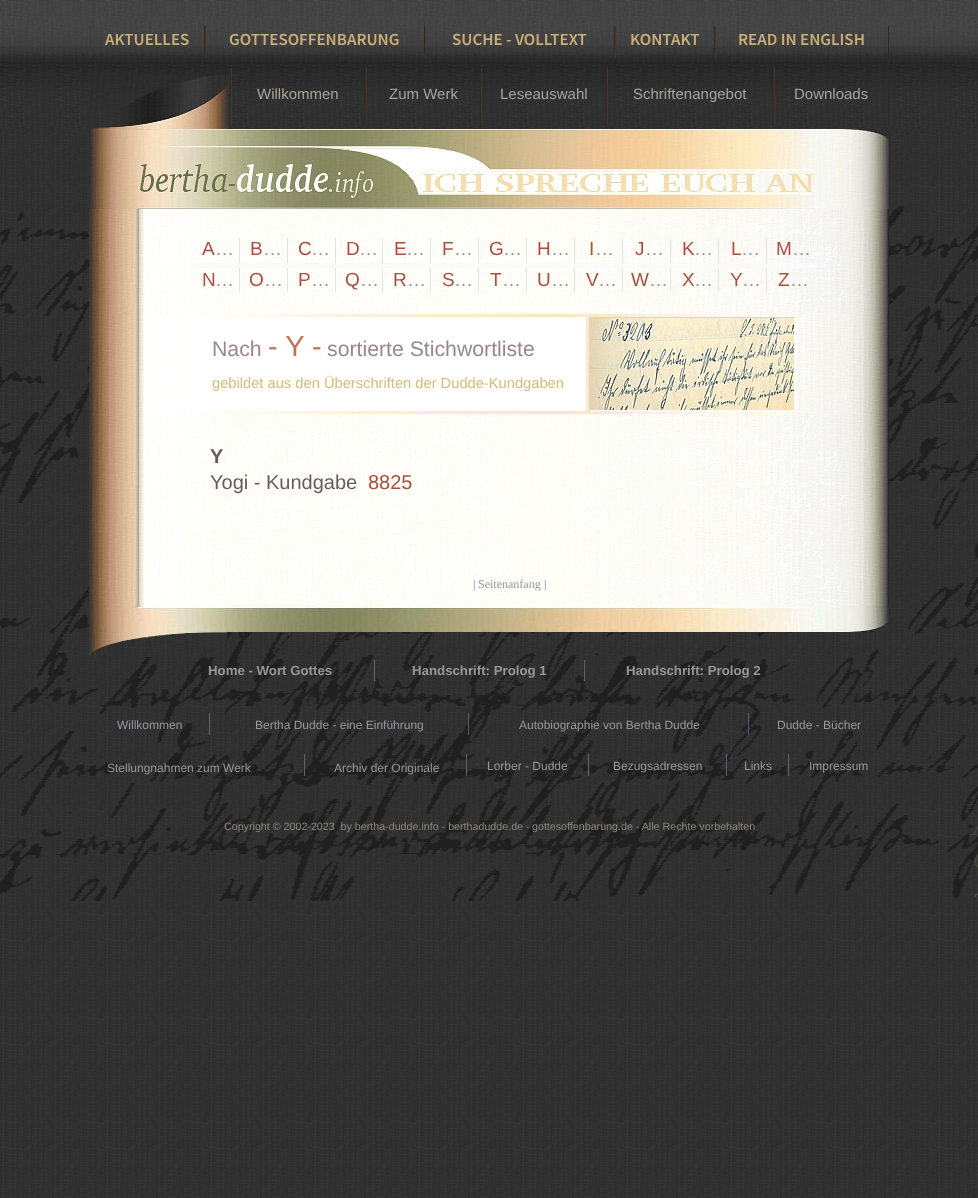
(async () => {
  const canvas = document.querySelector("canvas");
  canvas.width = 978;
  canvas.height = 1198;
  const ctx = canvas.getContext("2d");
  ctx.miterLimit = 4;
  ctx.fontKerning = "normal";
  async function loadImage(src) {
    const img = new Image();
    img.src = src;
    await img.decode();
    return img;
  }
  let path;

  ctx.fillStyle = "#ffffff";
  ctx.fillRect(0, 0, 978, 1198);
  ctx.drawImage(await loadImage("img/1.png"), 0, 129, 978, 1069);
  ctx.drawImage(await loadImage("img/2.png"), 0, 0, 978, 20);
  ctx.drawImage(await loadImage("img/3.png"), 0, 20, 978, 44);
  for (const [x, y, w, h, color] of [
    [204, 26, 1, 32, "#32281f"],
    [90, 26, 1, 32, "#423a2d"],
    [424, 26, 1, 32, "#32281f"],
    [205, 26, 1, 32, "#423a2d"],
    [614, 26, 1, 32, "#32281f"],
    [425, 26, 1, 32, "#423a2d"],
    [714, 26, 1, 32, "#32281f"],
    [615, 26, 1, 32, "#423a2d"],
    [888, 26, 1, 32, "#32281f"],
    [715, 26, 1, 32, "#423a2d"],
  ]) {
    ctx.fillStyle = color;
    ctx.fillRect(x, y, w, h);
  }
  ctx.drawImage(await loadImage("img/4.png"), 0, 64, 978, 65);
  ctx.drawImage(await loadImage("img/5.png"), 90, 74, 141, 55);
  for (const [x, y, w, h, color] of [
    [365, 68, 1, 57, "#32281f"],
    [231, 68, 1, 57, "#423a2d"],
    [480, 68, 1, 57, "#32281f"],
    [366, 68, 1, 57, "#423a2d"],
    [606, 68, 1, 57, "#32281f"],
    [481, 68, 1, 57, "#423a2d"],
    [773, 68, 1, 57, "#32281f"],
    [607, 68, 1, 57, "#423a2d"],
    [888, 68, 1, 57, "#32281f"],
    [774, 68, 1, 57, "#423a2d"],
  ]) {
    ctx.fillStyle = color;
    ctx.fillRect(x, y, w, h);
  }
  ctx.drawImage(await loadImage("img/6.png"), 0, 206, 978, 695);
  ctx.drawImage(await loadImage("img/7.png"), 90, 129, 799, 80);
  ctx.drawImage(await loadImage("img/8.png"), 89, 209, 800, 105);
  for (const [x, y, w, h, color] of [
    [189, 263, 3, 5, "#fafafa"],
    [239, 263, 1, 29, "#e2e2e2"],
    [237, 263, 3, 5, "#fafafa"],
    [287, 263, 1, 29, "#e2e2e2"],
    [285, 263, 3, 5, "#fafafa"],
    [335, 263, 1, 29, "#e2e2e2"],
    [333, 263, 3, 5, "#fafafa"],
    [382, 263, 1, 29, "#e2e2e2"],
    [380, 263, 3, 5, "#fafafa"],
    [430, 263, 1, 29, "#e2e2e2"],
    [428, 263, 3, 5, "#fafafa"],
    [478, 263, 1, 29, "#e2e2e2"],
    [476, 263, 3, 5, "#fafafa"],
    [526, 263, 1, 29, "#e2e2e2"],
    [524, 263, 3, 5, "#fafafa"],
    [574, 263, 1, 29, "#e2e2e2"],
    [572, 263, 3, 5, "#fafafa"],
    [622, 263, 1, 29, "#e2e2e2"],
    [620, 263, 3, 5, "#fafafa"],
    [670, 263, 1, 29, "#e2e2e2"],
    [668, 263, 3, 5, "#fafafa"],
    [718, 263, 1, 29, "#e2e2e2"],
    [716, 263, 3, 5, "#fafafa"],
    [766, 263, 1, 29, "#e2e2e2"],
    [764, 263, 53, 5, "#fafafa"],
  ]) {
    ctx.fillStyle = color;
    ctx.fillRect(x, y, w, h);
  }
  ctx.drawImage(await loadImage("img/9.png"), 89, 314, 800, 100);
  ctx.fillStyle = "#ffffff";
  ctx.fillRect(188, 317, 398, 94);
  ctx.drawImage(await loadImage("img/10.png"), 590, 317, 207, 93);
  ctx.fillStyle = "#dbd3cc";
  path = new Path2D("M589 317H797L794 318H590Z");
  ctx.fill(path);
  ctx.fillStyle = "#fdfdfd";
  path = new Path2D("M797 317V411L794 410V318Z");
  ctx.fill(path);
  ctx.fillRect(589, 410, 208, 1);
  ctx.fillStyle = "#dbd3cc";
  ctx.fillRect(589, 317, 1, 94);
  ctx.drawImage(await loadImage("img/11.png"), 89, 414, 800, 191);
  ctx.drawImage(await loadImage("img/12.png"), 89, 605, 800, 27);
  ctx.drawImage(await loadImage("img/13.png"), 89, 632, 138, 25);
  for (const [x, y, w, h, color] of [
    [374, 660, 1, 21, "#61636b"],
    [584, 660, 1, 21, "#61636b"],
    [209, 713, 1, 22, "#61636b"],
    [468, 713, 1, 22, "#5e5670"],
    [748, 713, 1, 22, "#5e5670"],
    [304, 754, 1, 22, "#61636b"],
    [466, 754, 1, 22, "#61636b"],
    [588, 754, 1, 22, "#61636b"],
    [726, 754, 1, 22, "#61636b"],
    [788, 754, 1, 22, "#61636b"],
  ]) {
    ctx.fillStyle = color;
    ctx.fillRect(x, y, w, h);
  }
  ctx.font = "600 17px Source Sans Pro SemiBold";
  ctx.fillStyle = "#c9ae76";
  for (const [text, x, y] of [
    ["AKTUELLES", 105, 45],
    ["GOTTESOFFENBARUNG", 229, 45],
    ["SUCHE - VOLLTEXT", 452, 45],
    ["KONTAKT", 630, 45],
    ["READ IN ENGLISH", 738, 45],
  ]) {
    ctx.fillText(text, x, y);
  }
  ctx.font = "15px Liberation Sans";
  ctx.fillStyle = "#a8a399";
  for (const [text, x, y] of [
    ["Willkommen", 257, 99],
    ["Zum Werk", 389, 99],
    ["Leseauswahl", 500, 99],
    ["Schriftenangebot", 633, 99],
    ["Downloads", 794, 99],
  ]) {
    ctx.fillText(text, x, y);
  }
  ctx.font = "19px Liberation Sans";
  ctx.fillStyle = "#aa4e3e";
  ctx.fillText("A", 202, 255);
  ctx.fillStyle = "#96979e";
  ctx.fillText("…", 215, 255);
  ctx.fillStyle = "#aa4e3e";
  ctx.fillText("B", 250, 255);
  ctx.fillStyle = "#96979e";
  ctx.fillText("…", 263, 255);
  ctx.fillStyle = "#aa4e3e";
  ctx.fillText("C", 298, 255);
  ctx.fillStyle = "#96979e";
  ctx.fillText("…", 311, 255);
  ctx.fillStyle = "#aa4e3e";
  ctx.fillText("D", 346, 255);
  ctx.fillStyle = "#96979e";
  ctx.fillText("…", 359, 255);
  ctx.fillStyle = "#aa4e3e";
  ctx.fillText("E", 394, 255);
  ctx.fillStyle = "#96979e";
  ctx.fillText("…", 406, 255);
  ctx.fillStyle = "#aa4e3e";
  ctx.fillText("F", 442, 255);
  ctx.fillStyle = "#96979e";
  ctx.fillText("…", 454, 255);
  ctx.fillStyle = "#aa4e3e";
  ctx.fillText("G", 489, 255);
  ctx.fillStyle = "#96979e";
  ctx.fillText("…", 503, 255);
  ctx.fillStyle = "#aa4e3e";
  ctx.fillText("H", 537, 255);
  ctx.fillStyle = "#96979e";
  ctx.fillText("…", 551, 255);
  ctx.fillStyle = "#aa4e3e";
  ctx.fillText("I", 589, 255);
  ctx.fillStyle = "#96979e";
  ctx.fillText("…", 595, 255);
  ctx.fillStyle = "#aa4e3e";
  ctx.fillText("J", 635, 255);
  ctx.fillStyle = "#96979e";
  ctx.fillText("…", 645, 255);
  ctx.fillStyle = "#aa4e3e";
  ctx.fillText("K", 682, 255);
  ctx.fillStyle = "#96979e";
  ctx.fillText("…", 694, 255);
  ctx.fillStyle = "#aa4e3e";
  ctx.fillText("L", 731, 255);
  ctx.fillStyle = "#96979e";
  ctx.fillText("…", 741, 255);
  ctx.fillStyle = "#aa4e3e";
  ctx.fillText("M", 776, 255);
  ctx.fillStyle = "#96979e";
  ctx.fillText("…", 792, 255);
  ctx.fillStyle = "#aa4e3e";
  ctx.fillText("N", 202, 286);
  ctx.fillStyle = "#96979e";
  ctx.fillText("…", 215, 286);
  ctx.fillStyle = "#aa4e3e";
  ctx.fillText("O", 249, 286);
  ctx.fillStyle = "#96979e";
  ctx.fillText("…", 264, 286);
  ctx.fillStyle = "#aa4e3e";
  ctx.fillText("P", 298, 286);
  ctx.fillStyle = "#96979e";
  ctx.fillText("…", 311, 286);
  ctx.fillStyle = "#aa4e3e";
  ctx.fillText("Q", 345, 286);
  ctx.fillStyle = "#96979e";
  ctx.fillText("…", 360, 286);
  ctx.fillStyle = "#aa4e3e";
  ctx.fillText("R", 393, 286);
  ctx.fillStyle = "#96979e";
  ctx.fillText("…", 407, 286);
  ctx.fillStyle = "#aa4e3e";
  ctx.fillText("S", 442, 286);
  ctx.fillStyle = "#96979e";
  ctx.fillText("…", 454, 286);
  ctx.fillStyle = "#aa4e3e";
  ctx.fillText("T", 490, 286);
  ctx.fillStyle = "#96979e";
  ctx.fillText("…", 502, 286);
  ctx.fillStyle = "#aa4e3e";
  ctx.fillText("U", 537, 286);
  ctx.fillStyle = "#96979e";
  ctx.fillText("…", 551, 286);
  ctx.fillStyle = "#aa4e3e";
  ctx.fillText("V", 586, 286);
  ctx.fillStyle = "#96979e";
  ctx.fillText("…", 598, 286);
  ctx.fillStyle = "#aa4e3e";
  ctx.fillText("W", 631, 286);
  ctx.fillStyle = "#96979e";
  ctx.fillText("…", 649, 286);
  ctx.fillStyle = "#aa4e3e";
  ctx.fillText("X", 682, 286);
  ctx.fillStyle = "#96979e";
  ctx.fillText("…", 694, 286);
  ctx.fillStyle = "#aa4e3e";
  ctx.fillText("Y", 730, 286);
  ctx.fillStyle = "#96979e";
  ctx.fillText("…", 742, 286);
  ctx.fillStyle = "#aa4e3e";
  ctx.fillText("Z", 778, 286);
  ctx.fillStyle = "#96979e";
  ctx.fillText("…", 790, 286);
  ctx.font = "21.25px Liberation Sans";
  ctx.fillStyle = "#998888";
  ctx.fillText("Nach", 212, 356);
  ctx.font = "29px Liberation Sans";
  ctx.fillStyle = "#be745a";
  ctx.fillText("- Y -", 268, 356);
  ctx.font = "21.25px Liberation Sans";
  ctx.fillStyle = "#998888";
  ctx.fillText("sortierte Stichwortliste", 327, 356);
  ctx.font = "14.7px Liberation Sans";
  ctx.fillStyle = "#d1bc7c";
  ctx.fillText("gebildet aus den Überschriften der Dudde-Kundgaben", 212, 388);
  ctx.font = "bold 20px Liberation Sans";
  ctx.fillStyle = "#6a5b5b";
  ctx.fillText("Y", 210, 463);
  ctx.font = "20px Liberation Sans";
  ctx.fillText("Yogi - Kundgabe", 210, 489);
  ctx.fillStyle = "#aa4e3e";
  ctx.fillText("8825", 368, 489);
  ctx.font = "12px Liberation Serif";
  ctx.fillStyle = "#757d91";
  ctx.fillText("|", 473, 588);
  ctx.fillStyle = "#96979e";
  ctx.fillText("Seitenanfang", 478, 588);
  ctx.fillStyle = "#757d91";
  ctx.fillText("|", 544, 588);
  ctx.font = "bold 13.25px Liberation Sans";
  ctx.fillStyle = "#96979e";
  for (const [text, x, y] of [
    ["Home - Wort Gottes", 208, 675],
    ["Handschrift: Prolog 1", 412, 675],
    ["Handschrift: Prolog 2", 626, 675],
  ]) {
    ctx.fillText(text, x, y);
  }
  ctx.font = "12px Liberation Sans";
  for (const [text, x, y] of [
    ["Willkommen", 117, 729],
    ["Bertha Dudde - eine Einführung", 255, 729],
    ["Autobiographie von Bertha Dudde", 519, 729],
    ["Dudde - Bücher", 777, 729],
    ["Stellungnahmen zum Werk", 107, 772],
    ["Archiv der Originale", 334, 772],
    ["Lorber - Dudde", 487, 770],
    ["Bezugsadressen", 613, 770],
    ["Links", 744, 770],
    ["Impressum", 809, 770],
  ]) {
    ctx.fillText(text, x, y);
  }
  ctx.font = "10.7px Liberation Sans";
  ctx.fillStyle = "#8c867b";
  ctx.fillText("Copyright © 2002-2023  by bertha-dudde.info - berthadudde.de -", 224, 830);
  ctx.fillText("gottesoffenbarung.de - Alle Rechte vorbehalten", 532, 830);
})();
